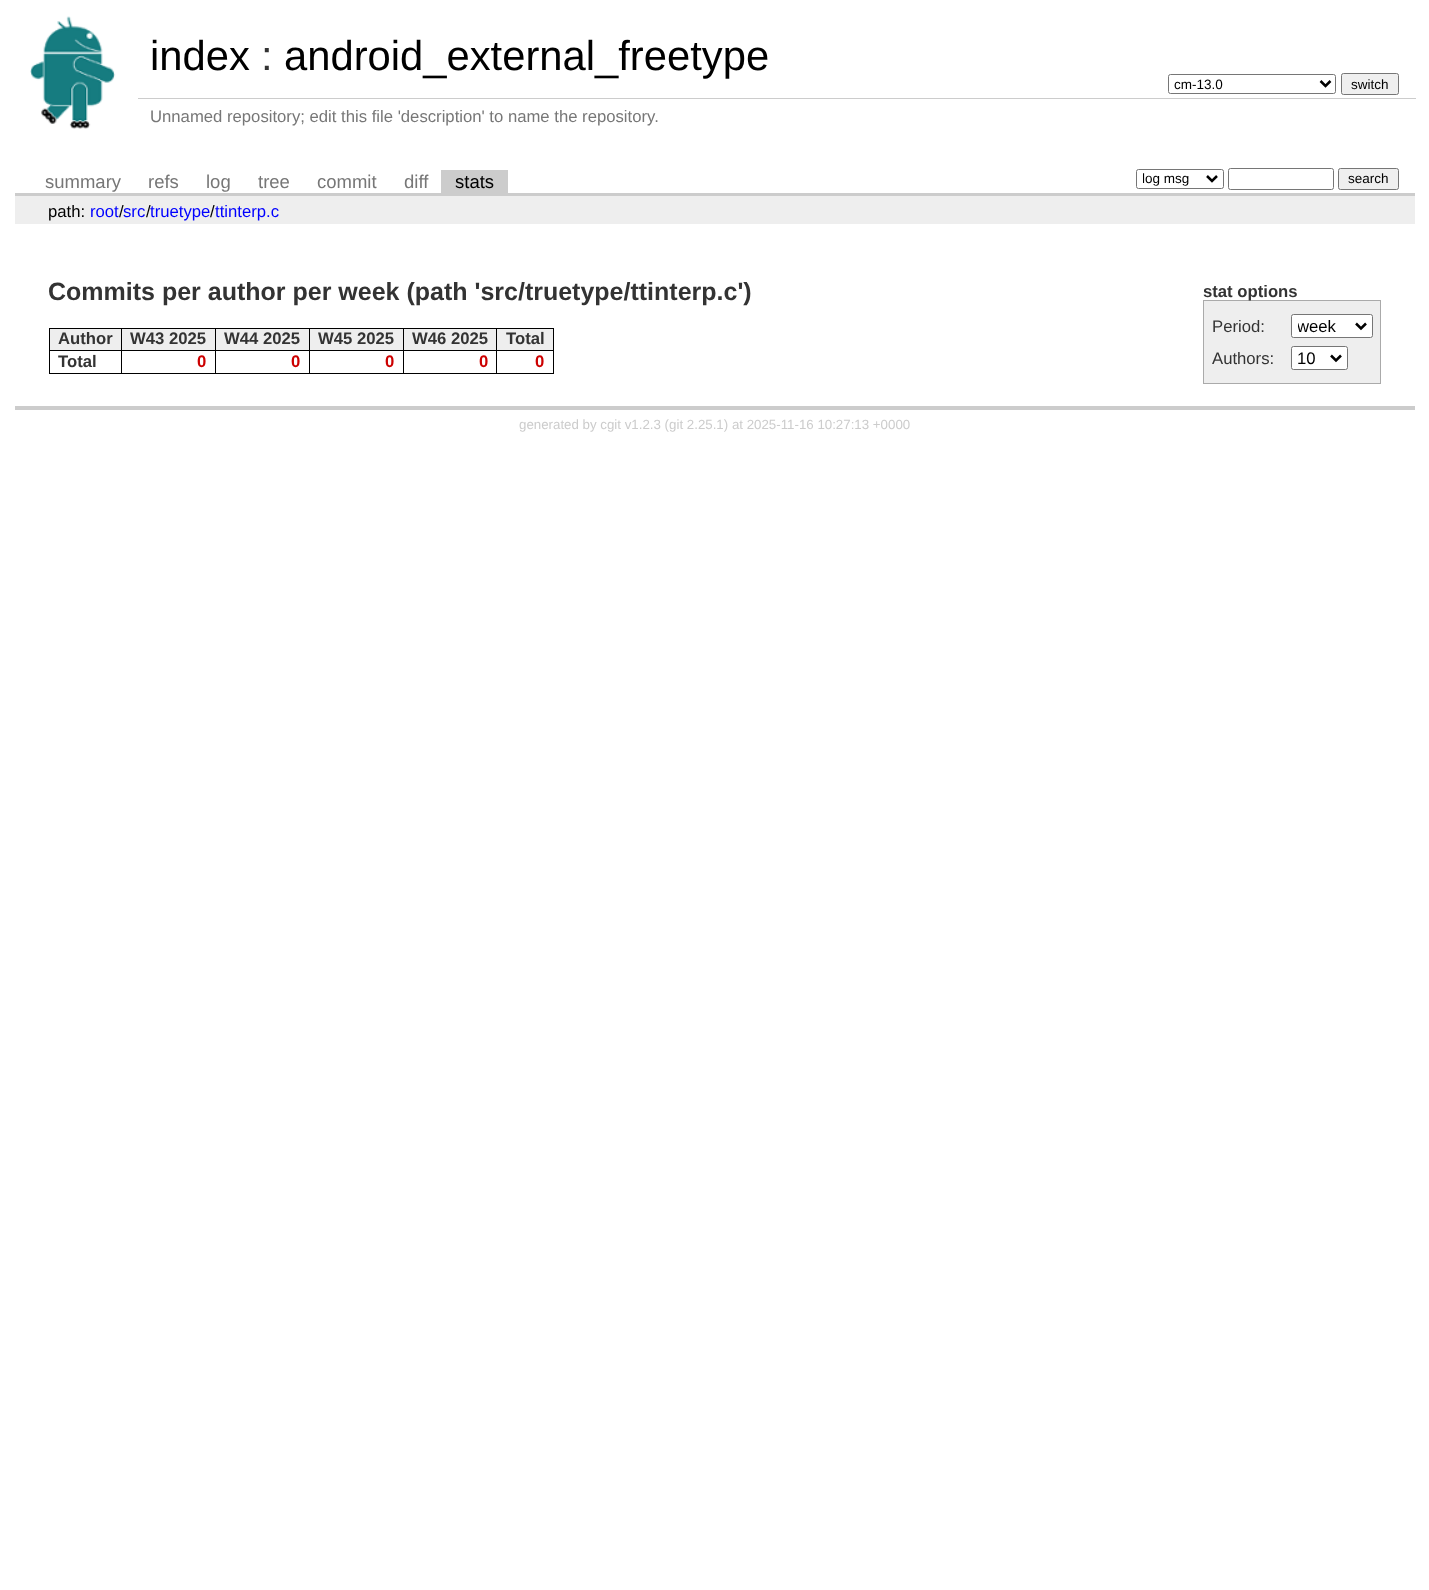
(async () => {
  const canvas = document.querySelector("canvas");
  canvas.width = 1429;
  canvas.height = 1590;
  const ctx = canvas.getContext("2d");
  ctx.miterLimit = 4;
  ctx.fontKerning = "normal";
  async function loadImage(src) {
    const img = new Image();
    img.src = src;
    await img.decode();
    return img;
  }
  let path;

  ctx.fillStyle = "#ffffff";
  ctx.fillRect(0, 0, 1429, 1590);
  ctx.drawImage(await loadImage("img/1.png"), 30, 16, 86, 113);
  ctx.beginPath();
  ctx.roundRect(1168.5, 74.5, 167, 19, 2);
  ctx.strokeStyle = "#767676";
  ctx.stroke();
  path = new Path2D("M1320.5 81L1325.5 86L1330.5 81");
  ctx.strokeStyle = "#000000";
  ctx.lineWidth = 2.5;
  ctx.stroke(path);
  ctx.fillStyle = "#efefef";
  ctx.beginPath();
  ctx.roundRect(1341.5, 73.5, 57, 21, 2);
  ctx.fill();
  ctx.strokeStyle = "#767676";
  ctx.lineWidth = 1;
  ctx.stroke();
  for (const [x, y, w, h, color] of [
    [138, 98, 1278, 1, "#cccccc"],
    [15, 193, 1400, 3, "#cccccc"],
    [441, 170, 67, 23, "#cccccc"],
  ]) {
    ctx.fillStyle = color;
    ctx.fillRect(x, y, w, h);
  }
  ctx.beginPath();
  ctx.roundRect(1136.5, 169.5, 87, 19, 2);
  ctx.stroke();
  path = new Path2D("M1207 176L1212 181L1217 176");
  ctx.strokeStyle = "#000000";
  ctx.lineWidth = 2.5;
  ctx.stroke(path);
  ctx.beginPath();
  ctx.roundRect(1228.5, 168.5, 105, 21, 2);
  ctx.strokeStyle = "#767676";
  ctx.lineWidth = 1;
  ctx.stroke();
  ctx.fillStyle = "#efefef";
  ctx.beginPath();
  ctx.roundRect(1338.5, 168.5, 60, 21, 2);
  ctx.fill();
  ctx.stroke();
  for (const [x, y, w, h, color] of [
    [15, 196, 1400, 28, "#eeeeee"],
    [15, 406, 1400, 4, "#cccccc"],
    [1204, 301, 176, 82, "#eeeeee"],
    [1203, 300, 178, 1, "#aaaaaa"],
    [1380, 300, 1, 84, "#aaaaaa"],
    [1203, 383, 178, 1, "#aaaaaa"],
    [1203, 300, 1, 84, "#aaaaaa"],
  ]) {
    ctx.fillStyle = color;
    ctx.fillRect(x, y, w, h);
  }
  ctx.fillStyle = "#ffffff";
  ctx.beginPath();
  ctx.roundRect(1291.5, 314.5, 81, 23, 2);
  ctx.fill();
  ctx.stroke();
  path = new Path2D("M1356 323.5L1361 328.5L1366 323.5");
  ctx.strokeStyle = "#000000";
  ctx.lineWidth = 2.5;
  ctx.stroke(path);
  ctx.beginPath();
  ctx.roundRect(1291.5, 346.5, 56, 23, 2);
  ctx.fill();
  ctx.strokeStyle = "#767676";
  ctx.lineWidth = 1;
  ctx.stroke();
  path = new Path2D("M1331 355.5L1336 360.5L1341 355.5");
  ctx.strokeStyle = "#000000";
  ctx.lineWidth = 2.5;
  ctx.stroke(path);
  for (const [x, y, w, h, color] of [
    [49, 328, 505, 1, "#000000"],
    [553, 328, 1, 46, "#000000"],
    [49, 373, 505, 1, "#000000"],
    [49, 328, 1, 46, "#000000"],
    [50, 329, 71, 21, "#eeeeee"],
    [122, 329, 93, 21, "#eeeeee"],
    [496, 350, 58, 1, "#000000"],
    [496, 350, 1, 24, "#000000"],
    [403, 350, 95, 1, "#000000"],
    [403, 350, 1, 24, "#000000"],
    [309, 350, 95, 1, "#000000"],
    [309, 350, 1, 24, "#000000"],
    [215, 350, 95, 1, "#000000"],
    [215, 350, 1, 24, "#000000"],
    [121, 350, 95, 1, "#000000"],
    [121, 350, 1, 24, "#000000"],
    [49, 350, 74, 1, "#000000"],
    [121, 328, 1, 23, "#000000"],
    [216, 329, 93, 21, "#eeeeee"],
    [215, 328, 1, 23, "#000000"],
    [310, 329, 93, 21, "#eeeeee"],
    [309, 328, 1, 23, "#000000"],
    [404, 329, 92, 21, "#eeeeee"],
    [403, 328, 1, 23, "#000000"],
    [497, 329, 56, 21, "#eeeeee"],
    [496, 328, 1, 23, "#000000"],
  ]) {
    ctx.fillStyle = color;
    ctx.fillRect(x, y, w, h);
  }
  ctx.font = "41.75px Liberation Sans";
  ctx.fillText("index", 150, 70);
  ctx.fillStyle = "#333333";
  ctx.fillText(":", 261, 70);
  ctx.fillStyle = "#000000";
  ctx.fillText("android_external_freetype", 284, 70);
  ctx.font = "13.5px Liberation Sans";
  ctx.fillText("cm-13.0", 1174, 89);
  ctx.fillText("switch", 1351, 89);
  ctx.font = "16.7px Liberation Sans";
  ctx.fillStyle = "#777777";
  ctx.fillText("Unnamed repository; edit this file 'description' to name the repository.", 150, 122);
  ctx.font = "18.5px Liberation Sans";
  for (const [text, x, y] of [
    ["summary", 45, 188],
    ["refs", 148, 188],
    ["log", 206, 188],
    ["tree", 258, 188],
    ["commit", 317, 188],
    ["diff", 404, 188],
  ]) {
    ctx.fillText(text, x, y);
  }
  ctx.fillStyle = "#000000";
  ctx.fillText("stats", 455, 188);
  ctx.save();
  ctx.beginPath();
  ctx.rect(1143, 170, 60, 18);
  ctx.clip();
  ctx.font = "13.5px Liberation Sans";
  ctx.fillText("log msg", 1142, 183);
  ctx.restore();
  ctx.font = "13.5px Liberation Sans";
  ctx.fillText("search", 1348, 183);
  ctx.font = "16.7px Liberation Sans";
  ctx.fillText("path:", 48, 217);
  ctx.fillStyle = "#0000ff";
  ctx.fillText("root", 90, 217);
  ctx.fillStyle = "#000000";
  ctx.fillText("/", 119, 217);
  ctx.fillStyle = "#0000ff";
  ctx.fillText("src", 123, 217);
  ctx.fillStyle = "#000000";
  ctx.fillText("/", 146, 217);
  ctx.fillStyle = "#0000ff";
  ctx.fillText("truetype", 150, 217);
  ctx.fillStyle = "#000000";
  ctx.fillText("/", 210, 217);
  ctx.fillStyle = "#0000ff";
  ctx.fillText("ttinterp.c", 215, 217);
  ctx.font = "bold 25px Liberation Sans";
  ctx.fillStyle = "#333333";
  ctx.fillText("Commits per author per week (path 'src/truetype/ttinterp.c')", 48, 300);
  ctx.font = "bold 16.7px Liberation Sans";
  ctx.fillText("stat options", 1203, 297);
  ctx.font = "16.7px Liberation Sans";
  ctx.fillText("Period:", 1212, 332);
  ctx.save();
  ctx.beginPath();
  ctx.rect(1298, 315, 53, 21);
  ctx.clip();
  ctx.fillStyle = "#000000";
  ctx.fillText("week", 1297, 332);
  ctx.restore();
  ctx.fillText("Authors:", 1212, 364);
  ctx.fillStyle = "#000000";
  ctx.fillText("10", 1297, 364);
  ctx.font = "bold 16.7px Liberation Sans";
  ctx.fillStyle = "#333333";
  for (const [text, x, y] of [
    ["Author", 58, 344],
    ["W43 2025", 130, 344],
    ["W44 2025", 224, 344],
    ["W45 2025", 318, 344],
    ["W46 2025", 412, 344],
    ["Total", 506, 344],
    ["Total", 58, 367],
  ]) {
    ctx.fillText(text, x, y);
  }
  ctx.fillStyle = "#cc0000";
  for (const [text, x, y] of [
    ["0", 197, 367],
    ["0", 291, 367],
    ["0", 385, 367],
    ["0", 479, 367],
    ["0", 535, 367],
  ]) {
    ctx.fillText(text, x, y);
  }
  ctx.font = "13.3px Liberation Sans";
  ctx.fillStyle = "#cccccc";
  ctx.fillText("generated by cgit v1.2.3 (git 2.25.1) at 2025-11-16 10:27:13 +0000", 519, 429);
})();
